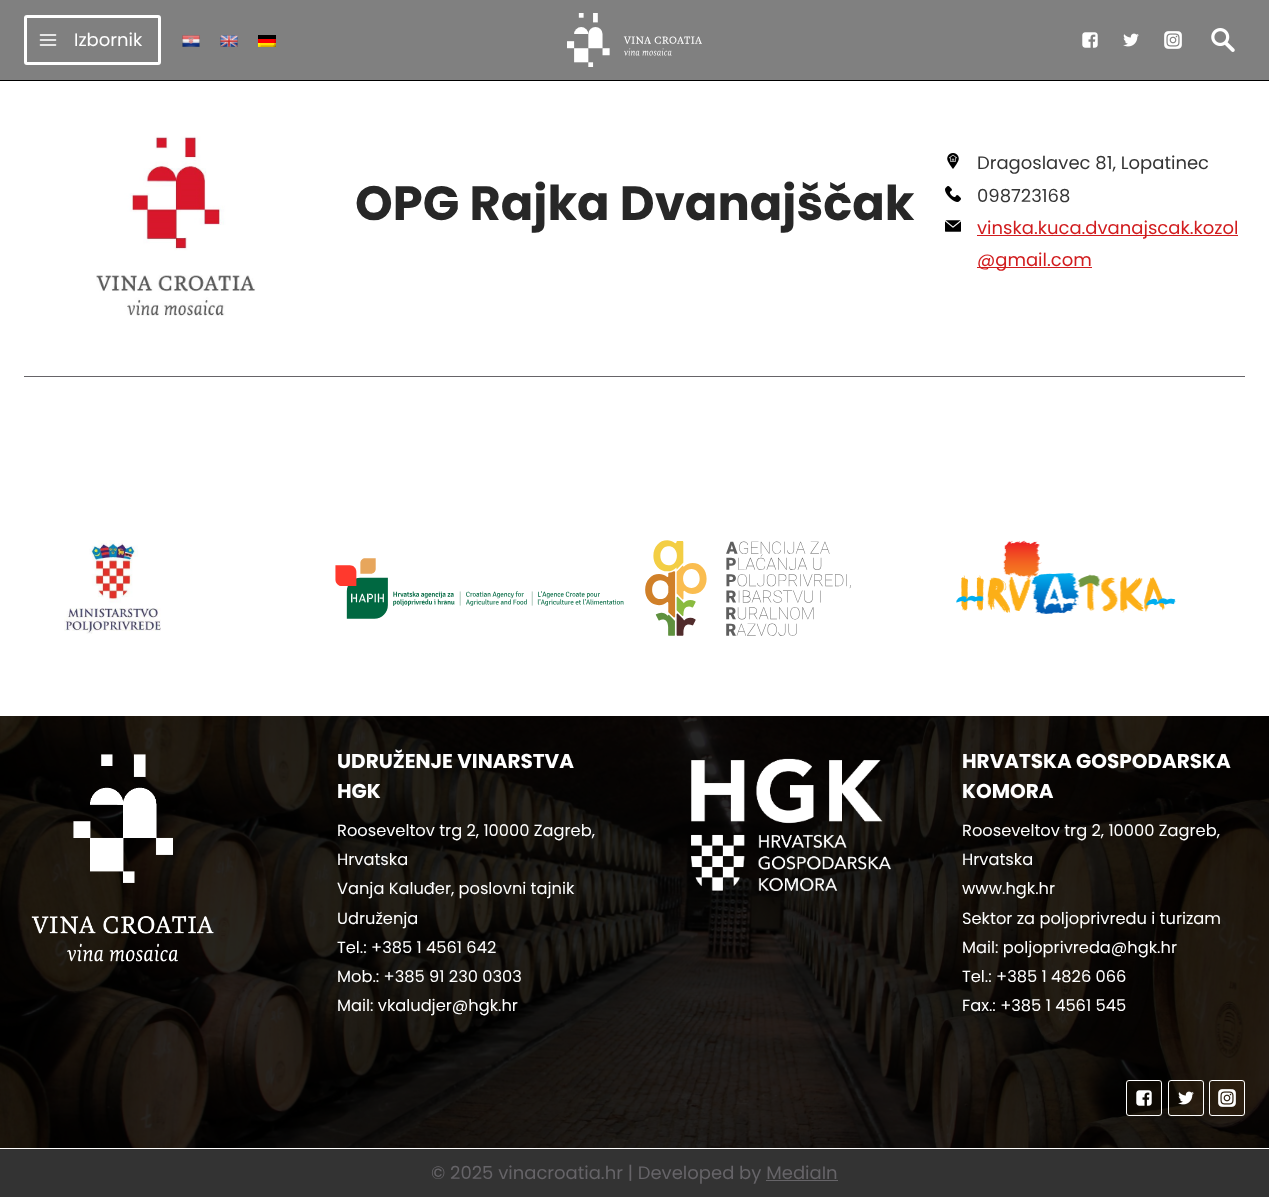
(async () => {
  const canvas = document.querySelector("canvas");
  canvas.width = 1269;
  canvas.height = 1197;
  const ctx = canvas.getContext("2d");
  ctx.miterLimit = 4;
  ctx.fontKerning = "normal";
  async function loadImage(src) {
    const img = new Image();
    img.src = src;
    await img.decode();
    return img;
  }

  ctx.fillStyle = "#ffffff";
  ctx.fillRect(0, 0, 1269, 1197);
  ctx.fillStyle = "#808080";
  ctx.fillRect(0, 0, 1269, 80);
  ctx.fillStyle = "#000000";
  ctx.fillRect(0, 80, 1269, 1);
  ctx.beginPath();
  ctx.roundRect(25.5, 16.5, 134, 47, 1.5);
  ctx.strokeStyle = "#ffffff";
  ctx.lineWidth = 3;
  ctx.stroke();
  ctx.drawImage(await loadImage("img/1.png"), 39, 34, 18, 12);
  ctx.drawImage(await loadImage("img/2.png"), 182, 35, 18, 12);
  ctx.drawImage(await loadImage("img/3.png"), 220, 35, 18, 12);
  ctx.drawImage(await loadImage("img/4.png"), 258, 35, 18, 12);
  ctx.drawImage(await loadImage("img/5.png"), 567, 13, 135, 54);
  ctx.drawImage(await loadImage("img/6.png"), 1082, 32, 16, 16);
  ctx.drawImage(await loadImage("img/7.png"), 1123, 33, 16, 14);
  ctx.drawImage(await loadImage("img/8.png"), 1164, 31, 18, 18);
  ctx.drawImage(await loadImage("img/9.png"), 1211, 28, 24, 24);
  ctx.fillStyle = "#666468";
  ctx.fillRect(24, 376, 1221, 1);
  ctx.drawImage(await loadImage("img/10.png"), 96, 136, 160, 180);
  ctx.drawImage(await loadImage("img/11.png"), 947, 153, 12, 16);
  ctx.drawImage(await loadImage("img/12.png"), 945, 186, 16, 16);
  ctx.drawImage(await loadImage("img/13.png"), 945, 220, 16, 12);
  ctx.fillStyle = "#d11c1e";
  ctx.fillRect(977, 235, 261, 1);
  ctx.fillRect(977, 267, 115, 1);
  ctx.drawImage(await loadImage("img/14.png"), 64, 540, 97, 94);
  ctx.drawImage(await loadImage("img/15.png"), 335, 558, 289, 61);
  ctx.drawImage(await loadImage("img/16.png"), 645, 540, 206, 96);
  ctx.drawImage(await loadImage("img/17.png"), 956, 540, 220, 74);
  ctx.drawImage(await loadImage("img/18.png"), 0, 716, 1269, 432);
  ctx.drawImage(await loadImage("img/19.png"), 31, 754, 183, 208);
  ctx.drawImage(await loadImage("img/20.png"), 691, 758, 200, 133);
  ctx.fillStyle = "rgba(251, 167, 56, 0.05)";
  ctx.fillRect(1126, 1080, 36, 36);
  ctx.beginPath();
  ctx.roundRect(1126.5, 1080.5, 35, 35, 2.5);
  ctx.lineWidth = 1;
  ctx.stroke();
  ctx.drawImage(await loadImage("img/21.png"), 1136, 1090, 16, 16);
  ctx.fillRect(1168, 1080, 36, 36);
  ctx.beginPath();
  ctx.roundRect(1168.5, 1080.5, 35, 35, 2.5);
  ctx.stroke();
  ctx.drawImage(await loadImage("img/22.png"), 1178, 1091, 16, 14);
  ctx.fillRect(1209, 1080, 36, 36);
  ctx.beginPath();
  ctx.roundRect(1209.5, 1080.5, 35, 35, 2.5);
  ctx.stroke();
  ctx.drawImage(await loadImage("img/23.png"), 1218, 1089, 18, 18);
  ctx.fillStyle = "#333333";
  ctx.fillRect(0, 1149, 1269, 48);
  ctx.fillStyle = "#666468";
  ctx.fillRect(766, 1180, 72, 1);
  ctx.font = "18px Poppins";
  ctx.fillStyle = "#ffffff";
  ctx.fillText("Izbornik", 74, 46);
  ctx.font = "bold 48px Poppins";
  ctx.fillStyle = "#272727";
  ctx.fillText("OPG Rajka Dvanajščak", 355, 220);
  ctx.font = "18px Poppins";
  ctx.fillStyle = "#353535";
  ctx.fillText("Dragoslavec 81, Lopatinec", 977, 169);
  ctx.fillText("098723168", 977, 202);
  ctx.fillStyle = "#d11c1e";
  ctx.fillText("vinska.kuca.dvanajscak.kozol", 977, 234);
  ctx.fillText("@gmail.com", 977, 266);
  ctx.font = "bold 20px Poppins";
  ctx.fillStyle = "#ffffff";
  ctx.fillText("UDRUŽENJE VINARSTVA", 337, 768);
  ctx.fillText("HGK", 337, 798);
  ctx.font = "16.25px Poppins";
  for (const [text, x, y] of [
    ["Rooseveltov trg 2, 10000 Zagreb,", 337, 836],
    ["Hrvatska", 337, 865],
    ["Vanja Kaluđer, poslovni tajnik", 337, 894],
    ["Udruženja", 337, 924],
    ["Tel.: +385 1 4561 642", 337, 953],
    ["Mob.: +385 91 230 0303", 337, 982],
    ["Mail: vkaludjer@hgk.hr", 337, 1011],
  ]) {
    ctx.fillText(text, x, y);
  }
  ctx.font = "bold 20px Poppins";
  ctx.fillText("HRVATSKA GOSPODARSKA", 962, 768);
  ctx.fillText("KOMORA", 962, 798);
  ctx.font = "16.25px Poppins";
  for (const [text, x, y] of [
    ["Rooseveltov trg 2, 10000 Zagreb,", 962, 836],
    ["Hrvatska", 962, 865],
    ["www.hgk.hr", 962, 894],
    ["Sektor za poljoprivredu i turizam", 962, 924],
    ["Mail: poljoprivreda@hgk.hr", 962, 953],
    ["Tel.: +385 1 4826 066", 962, 982],
    ["Fax.: +385 1 4561 545", 962, 1011],
  ]) {
    ctx.fillText(text, x, y);
  }
  ctx.font = "18px Poppins";
  ctx.fillStyle = "#666468";
  ctx.fillText("© 2025 vinacroatia.hr | Developed by MediaIn", 431, 1179);
})();
